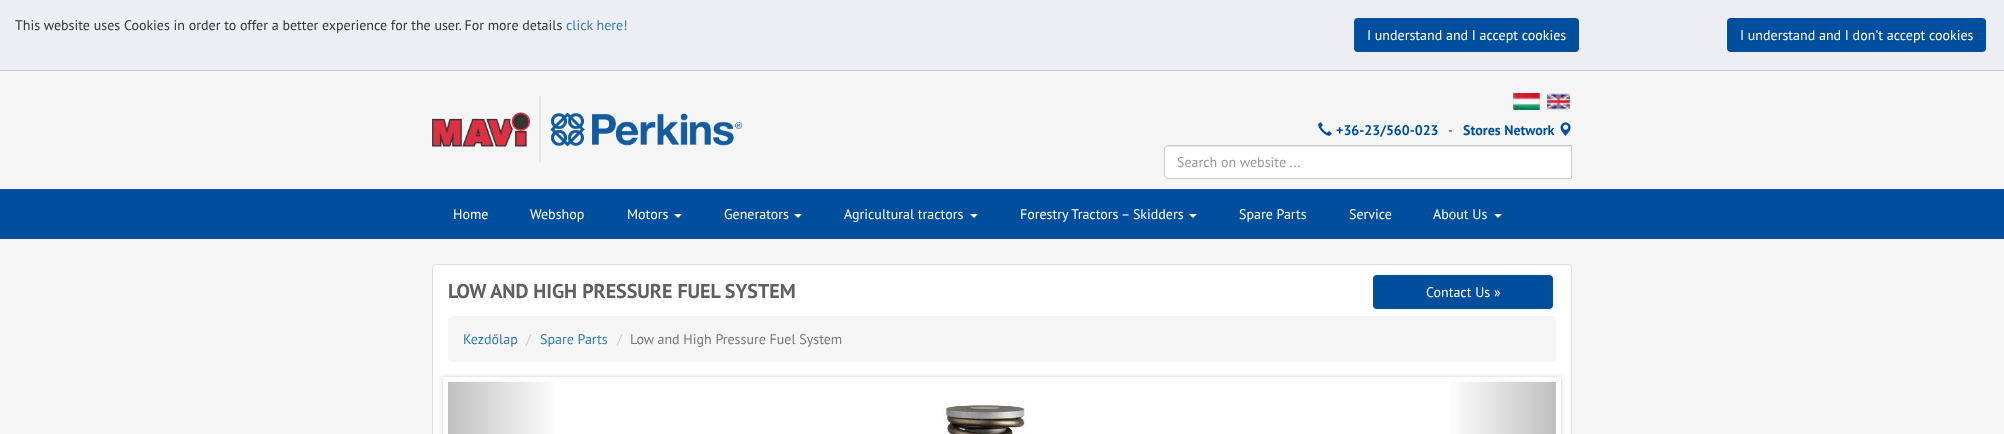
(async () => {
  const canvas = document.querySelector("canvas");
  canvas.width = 2004;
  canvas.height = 434;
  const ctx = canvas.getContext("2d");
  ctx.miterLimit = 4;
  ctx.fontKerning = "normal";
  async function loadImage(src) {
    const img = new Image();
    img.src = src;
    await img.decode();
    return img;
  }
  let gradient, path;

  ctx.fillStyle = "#f5f5f5";
  ctx.fillRect(0, 0, 2004, 434);
  ctx.fillStyle = "#eceef4";
  ctx.fillRect(0, 0, 2004, 70);
  ctx.fillStyle = "#cccccc";
  ctx.fillRect(0, 70, 2004, 1);
  ctx.fillStyle = "#004f9e";
  ctx.beginPath();
  ctx.roundRect(1354, 18, 225, 34, 4);
  ctx.fill();
  ctx.beginPath();
  ctx.roundRect(1727, 18, 259, 34, 4);
  ctx.fill();
  ctx.drawImage(await loadImage("img/1.png"), 432, 96, 310, 67);
  ctx.drawImage(await loadImage("img/2.png"), 1513, 93, 27, 17);
  ctx.drawImage(await loadImage("img/3.png"), 1547, 93, 23, 17);
  ctx.drawImage(await loadImage("img/4.png"), 1318, 122, 14, 14);
  ctx.drawImage(await loadImage("img/5.png"), 1560, 122, 11, 14);
  ctx.fillStyle = "#ffffff";
  ctx.beginPath();
  ctx.roundRect(1164, 145, 408, 34, [4, 0, 0, 4]);
  ctx.fill();
  ctx.fillStyle = "#ececec";
  path = new Path2D("M1168 147H1571V146H1168C1166 146 1165 148 1165 150C1165 148 1166 147 1168 147Z");
  ctx.fill(path);
  ctx.beginPath();
  ctx.roundRect(1164.5, 145.5, 407, 33, [3.5, 0, 0, 3.5]);
  ctx.strokeStyle = "#cccccc";
  ctx.stroke();
  ctx.fillStyle = "#004f9e";
  ctx.fillRect(0, 189, 2004, 50);
  ctx.fillStyle = "#ffffff";
  path = new Path2D("M674 214H682L678 218Z");
  ctx.fill(path);
  path = new Path2D("M794 214H802L798 218Z");
  ctx.fill(path);
  path = new Path2D("M970 214H978L974 218Z");
  ctx.fill(path);
  path = new Path2D("M1189 214H1197L1193 218Z");
  ctx.fill(path);
  path = new Path2D("M1494 214H1502L1498 218Z");
  ctx.fill(path);
  ctx.beginPath();
  ctx.roundRect(432.5, 264.5, 1139, 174, 3.5);
  ctx.fill();
  ctx.strokeStyle = "#dddddd";
  ctx.stroke();
  ctx.fillStyle = "#004f9e";
  ctx.beginPath();
  ctx.roundRect(1373, 275, 180, 34, 4);
  ctx.fill();
  ctx.fillStyle = "#f5f5f5";
  ctx.beginPath();
  ctx.roundRect(448, 316, 1108, 46, 4);
  ctx.fill();
  ctx.save();
  path = new Path2D("M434 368H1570V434H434ZM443 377H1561V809H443Z");
  ctx.clip(path, "evenodd");
  ctx.fillStyle = "#cccccc";
  ctx.filter = "blur(2.5px)";
  ctx.beginPath();
  ctx.rect(443, 377, 1118, 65);
  ctx.fill();
  ctx.filter = "none";
  ctx.restore();
  gradient = ctx.createLinearGradient(448, 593, 559, 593);
  gradient.addColorStop(0, "#c0c0c0");
  gradient.addColorStop(1, "#ffffff");
  ctx.fillStyle = gradient;
  ctx.fillRect(448, 382, 107, 52);
  ctx.drawImage(await loadImage("img/6.png"), 943, 403, 84, 31);
  gradient = ctx.createLinearGradient(1445, 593, 1556, 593);
  gradient.addColorStop(0, "#ffffff");
  gradient.addColorStop(1, "#c0c0c0");
  ctx.fillStyle = gradient;
  ctx.fillRect(1449, 382, 107, 52);
  ctx.font = "14px PT Sans";
  ctx.fillStyle = "#333333";
  ctx.fillText("This website uses Cookies in order to offer a better experience for the user. For more details", 15, 30);
  ctx.fillStyle = "#337ab7";
  ctx.fillText("click here!", 566, 30);
  ctx.fillStyle = "#ffffff";
  ctx.fillText("I understand and I accept cookies", 1367, 40);
  ctx.fillText("I understand and I don't accept cookies", 1740, 40);
  ctx.font = "bold 14px PT Sans";
  ctx.fillStyle = "#004f9e";
  ctx.fillText("+36-23/560-023", 1336, 135);
  ctx.font = "14px PT Sans";
  ctx.fillStyle = "#333333";
  ctx.fillText("-", 1448, 135);
  ctx.font = "bold 14px PT Sans";
  ctx.fillStyle = "#004f9e";
  ctx.fillText("Stores Network", 1463, 135);
  ctx.font = "14px PT Sans";
  ctx.fillStyle = "#999999";
  ctx.fillText("Search on website ...", 1177, 167);
  ctx.fillStyle = "#ffffff";
  for (const [text, x, y] of [
    ["Home", 453, 219],
    ["Webshop", 530, 219],
    ["Motors", 627, 219],
    ["Generators", 724, 219],
    ["Agricultural tractors", 844, 219],
    ["Forestry Tractors – Skidders", 1020, 219],
    ["Spare Parts", 1239, 219],
    ["Service", 1349, 219],
    ["About Us", 1433, 219],
  ]) {
    ctx.fillText(text, x, y);
  }
  ctx.font = "bold 20px PT Sans";
  ctx.fillStyle = "#5f5f5f";
  ctx.fillText("LOW AND HIGH PRESSURE FUEL SYSTEM", 448, 298);
  ctx.font = "14px PT Sans";
  ctx.fillStyle = "#ffffff";
  ctx.fillText("Contact Us »", 1426, 297);
  ctx.fillStyle = "#337ab7";
  ctx.fillText("Kezdőlap", 463, 344);
  ctx.fillStyle = "#cccccc";
  ctx.fillText("/", 526, 344);
  ctx.fillStyle = "#337ab7";
  ctx.fillText("Spare Parts", 540, 344);
  ctx.fillStyle = "#cccccc";
  ctx.fillText("/", 617, 344);
  ctx.fillStyle = "#777777";
  ctx.fillText("Low and High Pressure Fuel System", 630, 344);
})();
